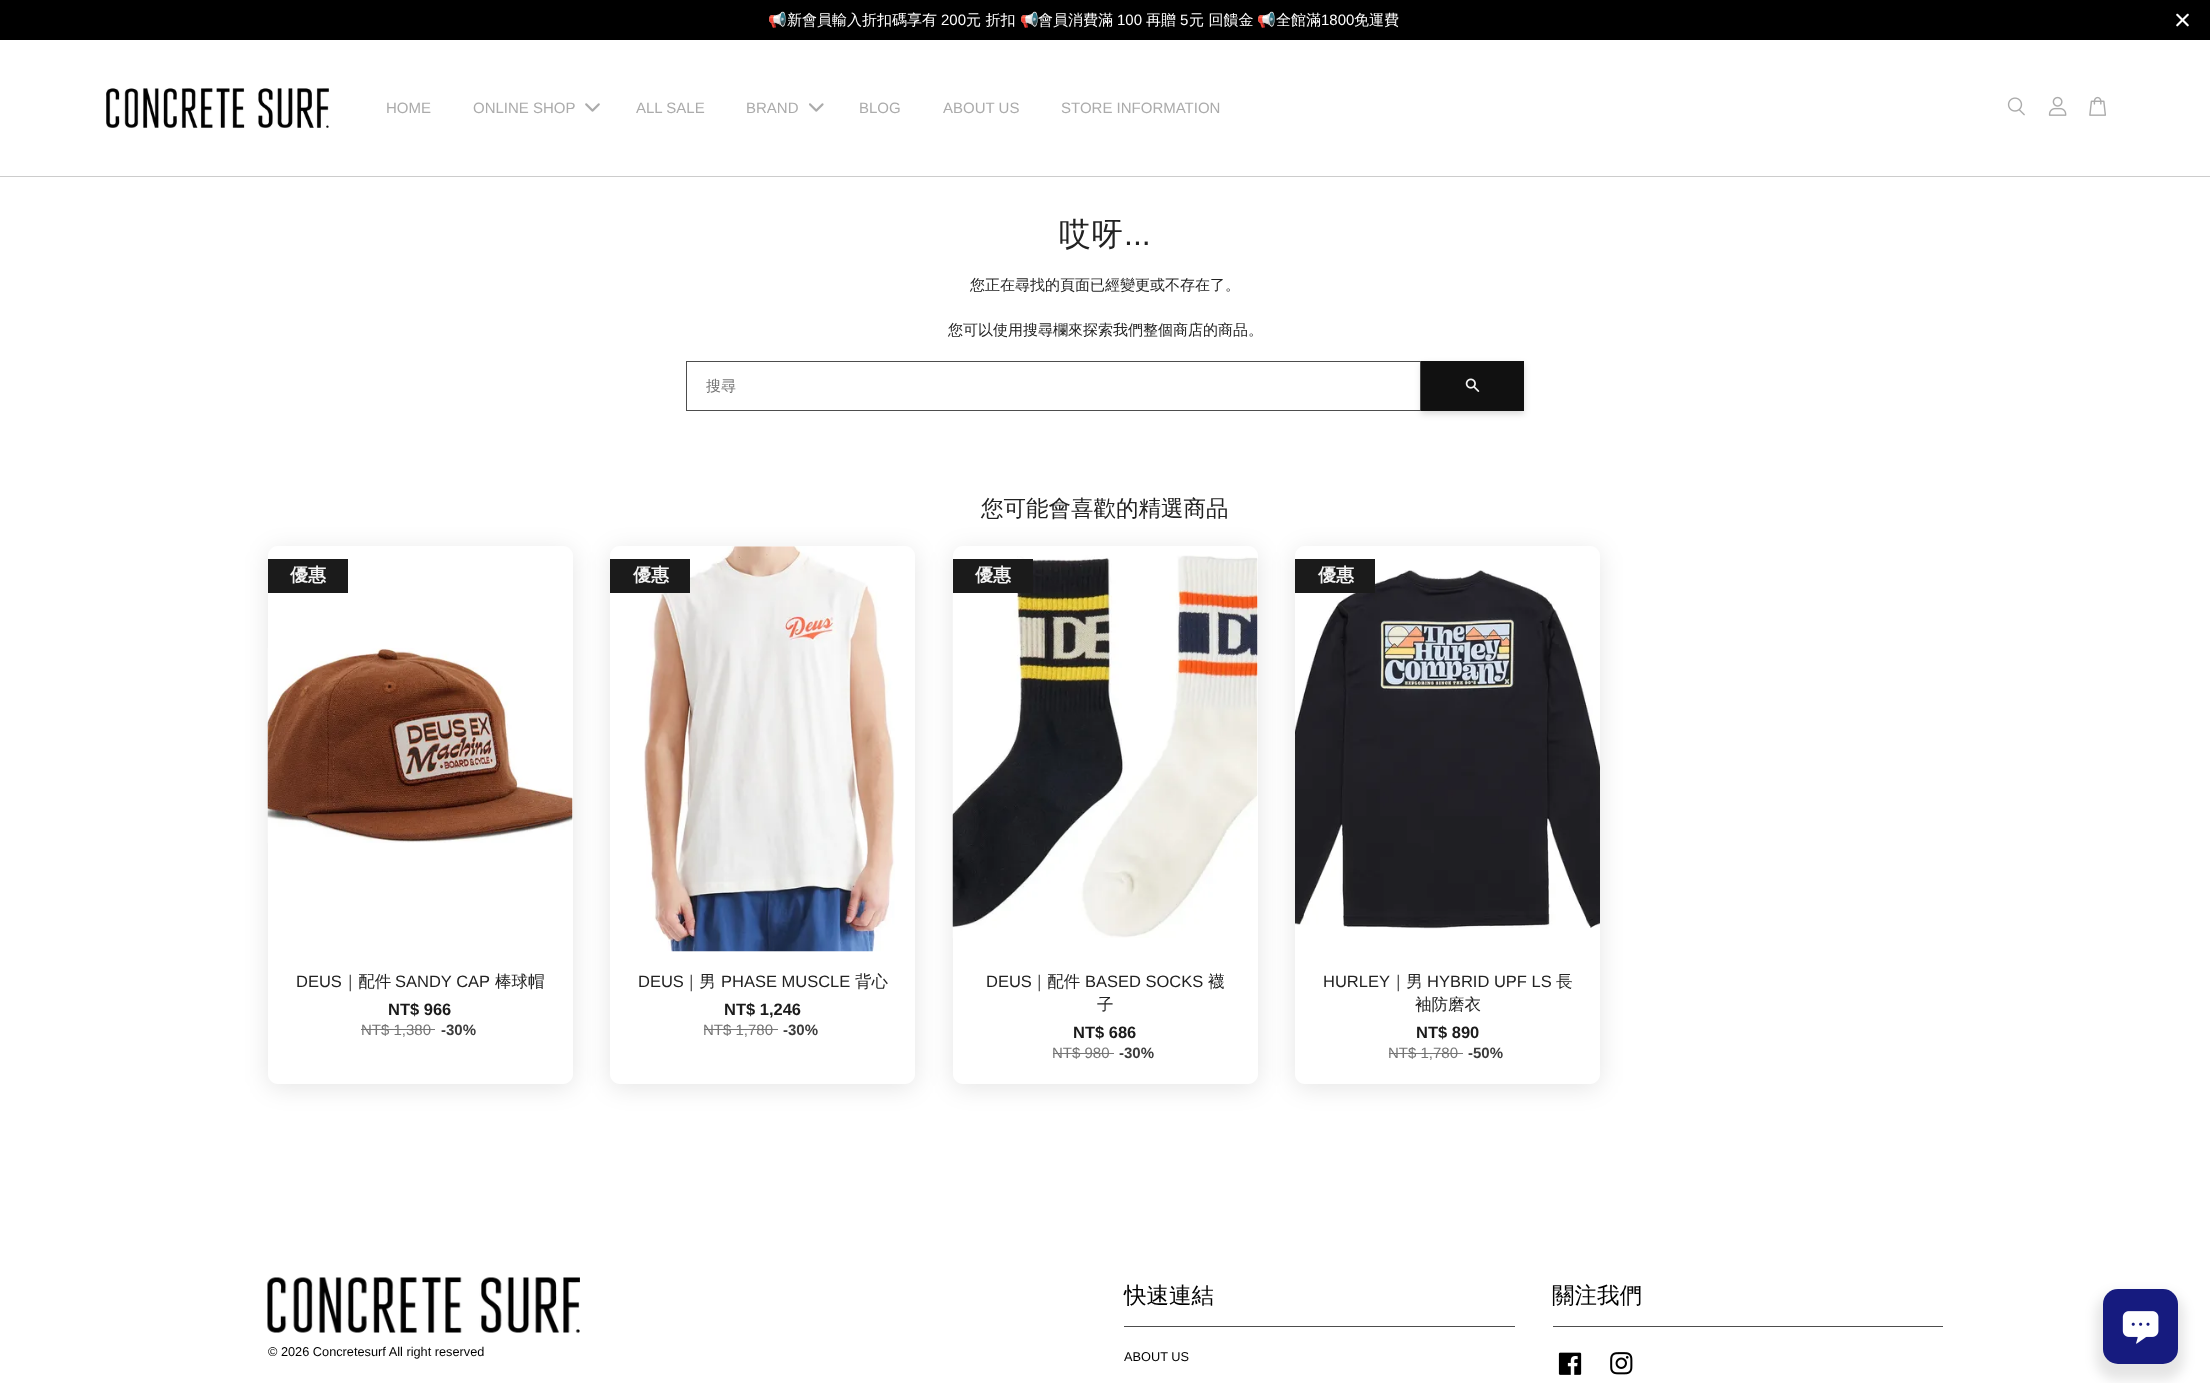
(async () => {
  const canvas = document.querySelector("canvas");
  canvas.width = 2210;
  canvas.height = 1383;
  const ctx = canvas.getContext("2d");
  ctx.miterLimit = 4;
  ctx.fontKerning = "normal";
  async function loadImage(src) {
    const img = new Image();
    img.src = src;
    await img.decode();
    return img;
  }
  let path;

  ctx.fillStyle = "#ffffff";
  ctx.fillRect(0, 0, 2210, 1383);
  ctx.fillStyle = "#000000";
  ctx.fillRect(0, 0, 2210, 40);
  ctx.fillStyle = "#ffffff";
  path = new Path2D("M2188.5 14C2189 14.5 2189 15 2188.5 15.5L2178 26C2177.5 26.5 2177 26.5 2176.5 26C2176 25.5 2176 25 2176.5 24.5L2187 14C2187.5 13.5 2188 13.5 2188.5 14Z");
  ctx.fill(path);
  path = new Path2D("M2176.5 14C2177 13.5 2177.5 13.5 2178 14L2188.5 24.5C2189 25 2189 25.5 2188.5 26C2188 26.5 2187.5 26.5 2187 26L2176.5 15.5C2176 15 2176 14.5 2176.5 14Z");
  ctx.fill(path);
  ctx.fillStyle = "#cccccc";
  ctx.fillRect(0, 176, 2210, 1);
  ctx.drawImage(await loadImage("img/1.png"), 106, 88, 223, 40);
  ctx.drawImage(await loadImage("img/2.png"), 585, 103, 15, 9);
  ctx.drawImage(await loadImage("img/3.png"), 809, 103, 15, 9);
  ctx.drawImage(await loadImage("img/4.png"), 2007, 97, 18, 19);
  ctx.drawImage(await loadImage("img/5.png"), 2048, 96, 19, 20);
  ctx.drawImage(await loadImage("img/6.png"), 2089, 96, 17, 20);
  ctx.strokeStyle = "#4d4d4d";
  ctx.strokeRect(686.5, 361.5, 734, 49);
  ctx.fillStyle = "rgba(0, 0, 0, 0.15)";
  ctx.filter = "blur(3px)";
  ctx.beginPath();
  ctx.rect(1421, 364, 103, 50);
  ctx.fill();
  ctx.filter = "none";
  ctx.fillStyle = "#111111";
  ctx.fillRect(1421, 361, 103, 50);
  ctx.drawImage(await loadImage("img/7.png"), 1465, 378, 15, 14);
  ctx.save();
  path = new Path2D("M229 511H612V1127H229ZM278 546H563C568.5 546 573 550.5 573 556V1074C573 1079.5 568.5 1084 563 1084H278C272.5 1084 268 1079.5 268 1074V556C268 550.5 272.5 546 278 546Z");
  ctx.clip(path, "evenodd");
  ctx.fillStyle = "rgba(0, 0, 0, 0.1)";
  ctx.filter = "blur(12.5px)";
  ctx.beginPath();
  ctx.roundRect(268, 550, 305, 538, 10);
  ctx.fill();
  ctx.filter = "none";
  ctx.restore();
  ctx.fillStyle = "#1b1b1b";
  ctx.fillRect(268, 559, 80, 34);
  ctx.drawImage(await loadImage("img/8.png"), 267, 648, 306, 195);
  ctx.save();
  path = new Path2D("M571 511H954V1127H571ZM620 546H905C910.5 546 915 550.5 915 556V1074C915 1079.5 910.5 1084 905 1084H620C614.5 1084 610 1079.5 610 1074V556C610 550.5 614.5 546 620 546Z");
  ctx.clip(path, "evenodd");
  ctx.fillStyle = "rgba(0, 0, 0, 0.1)";
  ctx.filter = "blur(12.5px)";
  ctx.beginPath();
  ctx.roundRect(610, 550, 305, 538, 10);
  ctx.fill();
  ctx.filter = "none";
  ctx.restore();
  ctx.drawImage(await loadImage("img/9.png"), 644, 546, 251, 406);
  ctx.fillRect(610, 559, 80, 34);
  ctx.save();
  path = new Path2D("M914 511H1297V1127H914ZM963 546H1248C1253.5 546 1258 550.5 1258 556V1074C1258 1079.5 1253.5 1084 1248 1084H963C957.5 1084 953 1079.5 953 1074V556C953 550.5 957.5 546 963 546Z");
  ctx.clip(path, "evenodd");
  ctx.fillStyle = "rgba(0, 0, 0, 0.1)";
  ctx.filter = "blur(12.5px)";
  ctx.beginPath();
  ctx.roundRect(953, 550, 305, 538, 10);
  ctx.fill();
  ctx.filter = "none";
  ctx.restore();
  ctx.drawImage(await loadImage("img/10.png"), 952, 555, 306, 383);
  ctx.fillRect(953, 559, 80, 34);
  ctx.save();
  path = new Path2D("M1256 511H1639V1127H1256ZM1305 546H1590C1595.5 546 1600 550.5 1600 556V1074C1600 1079.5 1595.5 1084 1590 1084H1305C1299.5 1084 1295 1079.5 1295 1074V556C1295 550.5 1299.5 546 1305 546Z");
  ctx.clip(path, "evenodd");
  ctx.fillStyle = "rgba(0, 0, 0, 0.1)";
  ctx.filter = "blur(12.5px)";
  ctx.beginPath();
  ctx.roundRect(1295, 550, 305, 538, 10);
  ctx.fill();
  ctx.filter = "none";
  ctx.restore();
  ctx.drawImage(await loadImage("img/11.png"), 1295, 570, 305, 359);
  for (const [x, y, w, h, color] of [
    [1295, 559, 80, 34, "#1b1b1b"],
    [1124, 1326, 391, 1, "#4d4d4d"],
    [1553, 1326, 390, 1, "#4d4d4d"],
  ]) {
    ctx.fillStyle = color;
    ctx.fillRect(x, y, w, h);
  }
  ctx.drawImage(await loadImage("img/12.png"), 1558, 1352, 24, 23);
  ctx.drawImage(await loadImage("img/13.png"), 1610, 1352, 23, 23);
  ctx.drawImage(await loadImage("img/14.png"), 267, 1277, 313, 56);
  ctx.fillStyle = "rgba(0, 0, 0, 0.1)";
  ctx.filter = "blur(6px)";
  ctx.beginPath();
  ctx.roundRect(2096, 1293, 88, 87, 21);
  ctx.fill();
  ctx.filter = "none";
  ctx.fillStyle = "#161b7f";
  ctx.beginPath();
  ctx.roundRect(2103, 1289, 75, 75, 15);
  ctx.fill();
  ctx.drawImage(await loadImage("img/15.png"), 2122, 1311, 37, 33);
  ctx.font = "15px Noto Color Emoji";
  ctx.fillStyle = "#ffffff";
  ctx.fillText("📢", 768, 25);
  ctx.font = "500 15px WenQuanYi Zen Hei";
  ctx.fillText("新會員輸入折扣碼享有", 787, 25);
  ctx.font = "15px Liberation Sans";
  ctx.fillText("200", 941, 25);
  ctx.font = "500 15px WenQuanYi Zen Hei";
  ctx.fillText("元 折扣", 966, 25);
  ctx.font = "15px Noto Color Emoji";
  ctx.fillText("📢", 1020, 25);
  ctx.font = "500 15px WenQuanYi Zen Hei";
  ctx.fillText("會員消費滿", 1038, 25);
  ctx.font = "15px Liberation Sans";
  ctx.fillText("100", 1117, 25);
  ctx.font = "500 15px WenQuanYi Zen Hei";
  ctx.fillText("再贈", 1146, 25);
  ctx.font = "15px Liberation Sans";
  ctx.fillText("5", 1180, 25);
  ctx.font = "500 15px WenQuanYi Zen Hei";
  ctx.fillText("元 回饋金", 1189, 25);
  ctx.font = "15px Noto Color Emoji";
  ctx.fillText("📢", 1257, 25);
  ctx.font = "500 15px WenQuanYi Zen Hei";
  ctx.fillText("全館滿", 1276, 25);
  ctx.font = "15px Liberation Sans";
  ctx.fillText("1800", 1321, 25);
  ctx.font = "500 15px WenQuanYi Zen Hei";
  ctx.fillText("免運費", 1354, 25);
  ctx.font = "15px Liberation Sans";
  ctx.fillStyle = "#ababab";
  for (const [text, x, y] of [
    ["HOME", 386, 113],
    ["ONLINE SHOP", 473, 113],
    ["ALL SALE", 636, 113],
    ["BRAND", 746, 113],
    ["BLOG", 859, 113],
    ["ABOUT US", 943, 113],
    ["STORE INFORMATION", 1061, 113],
  ]) {
    ctx.fillText(text, x, y);
  }
  ctx.font = "500 32px WenQuanYi Zen Hei";
  ctx.fillStyle = "#222222";
  ctx.fillText("哎呀", 1059, 245);
  ctx.font = "32px Liberation Sans";
  ctx.fillText("...", 1124, 245);
  ctx.font = "500 15px WenQuanYi Zen Hei";
  ctx.fillText("您正在尋找的頁面已經變更或不存在了。", 970, 290);
  ctx.fillText("您可以使用搜尋欄來探索我們整個商店的商品。", 948, 335);
  ctx.fillStyle = "#757575";
  ctx.fillText("搜尋", 706, 391);
  ctx.font = "500 22.5px WenQuanYi Zen Hei";
  ctx.fillStyle = "#222222";
  ctx.fillText("您可能會喜歡的精選商品", 981, 516);
  ctx.font = "bold 18px WenQuanYi Zen Hei";
  ctx.fillStyle = "#f5f5f5";
  ctx.fillText("優惠", 290, 581);
  ctx.font = "16.5px Liberation Sans";
  ctx.fillStyle = "#222222";
  ctx.fillText("DEUS", 296, 987);
  ctx.font = "500 16.5px WenQuanYi Zen Hei";
  ctx.fillText("｜配件", 342, 987);
  ctx.font = "16.5px Liberation Sans";
  ctx.fillText("SANDY CAP", 395, 987);
  ctx.font = "500 16.5px WenQuanYi Zen Hei";
  ctx.fillText("棒球帽", 495, 987);
  ctx.font = "bold 16.5px Liberation Sans";
  ctx.fillStyle = "#1b1b1b";
  ctx.fillText("NT$ 966", 388, 1015);
  ctx.font = "15px Liberation Sans";
  ctx.fillStyle = "#757575";
  ctx.fillText("NT$ 1,380", 361, 1035);
  ctx.fillStyle = "#777777";
  ctx.fillRect(361, 1029, 74, 1);
  ctx.font = "bold 15px Liberation Sans";
  ctx.fillStyle = "#3c3c3c";
  ctx.fillText("-30%", 441, 1035);
  ctx.font = "bold 18px WenQuanYi Zen Hei";
  ctx.fillStyle = "#f5f5f5";
  ctx.fillText("優惠", 633, 581);
  ctx.font = "16.5px Liberation Sans";
  ctx.fillStyle = "#222222";
  ctx.fillText("DEUS", 638, 987);
  ctx.font = "500 16.5px WenQuanYi Zen Hei";
  ctx.fillText("｜男", 683, 987);
  ctx.font = "16.5px Liberation Sans";
  ctx.fillText("PHASE MUSCLE", 721, 987);
  ctx.font = "500 16.5px WenQuanYi Zen Hei";
  ctx.fillText("背心", 855, 987);
  ctx.font = "bold 16.5px Liberation Sans";
  ctx.fillStyle = "#1b1b1b";
  ctx.fillText("NT$ 1,246", 724, 1015);
  ctx.font = "15px Liberation Sans";
  ctx.fillStyle = "#757575";
  ctx.fillText("NT$ 1,780", 703, 1035);
  ctx.fillStyle = "#777777";
  ctx.fillRect(704, 1029, 74, 1);
  ctx.font = "bold 15px Liberation Sans";
  ctx.fillStyle = "#3c3c3c";
  ctx.fillText("-30%", 783, 1035);
  ctx.font = "bold 18px WenQuanYi Zen Hei";
  ctx.fillStyle = "#f5f5f5";
  ctx.fillText("優惠", 975, 581);
  ctx.font = "16.5px Liberation Sans";
  ctx.fillStyle = "#222222";
  ctx.fillText("DEUS", 986, 987);
  ctx.font = "500 16.5px WenQuanYi Zen Hei";
  ctx.fillText("｜配件", 1031, 987);
  ctx.font = "16.5px Liberation Sans";
  ctx.fillText("BASED SOCKS", 1085, 987);
  ctx.font = "500 16.5px WenQuanYi Zen Hei";
  ctx.fillText("襪", 1208, 987);
  ctx.fillText("子", 1097, 1010);
  ctx.font = "bold 16.5px Liberation Sans";
  ctx.fillStyle = "#1b1b1b";
  ctx.fillText("NT$ 686", 1073, 1038);
  ctx.font = "15px Liberation Sans";
  ctx.fillStyle = "#757575";
  ctx.fillText("NT$ 980", 1052, 1058);
  ctx.fillStyle = "#777777";
  ctx.fillRect(1053, 1053, 61, 1);
  ctx.font = "bold 15px Liberation Sans";
  ctx.fillStyle = "#3c3c3c";
  ctx.fillText("-30%", 1119, 1058);
  ctx.font = "bold 18px WenQuanYi Zen Hei";
  ctx.fillStyle = "#f5f5f5";
  ctx.fillText("優惠", 1318, 581);
  ctx.font = "16.5px Liberation Sans";
  ctx.fillStyle = "#222222";
  ctx.fillText("HURLEY", 1323, 987);
  ctx.font = "500 16.5px WenQuanYi Zen Hei";
  ctx.fillText("｜男", 1390, 987);
  ctx.font = "16.5px Liberation Sans";
  ctx.fillText("HYBRID UPF LS", 1427, 987);
  ctx.font = "500 16.5px WenQuanYi Zen Hei";
  ctx.fillText("長", 1556, 987);
  ctx.fillText("袖防磨衣", 1415, 1010);
  ctx.font = "bold 16.5px Liberation Sans";
  ctx.fillStyle = "#1b1b1b";
  ctx.fillText("NT$ 890", 1416, 1038);
  ctx.font = "15px Liberation Sans";
  ctx.fillStyle = "#757575";
  ctx.fillText("NT$ 1,780", 1388, 1058);
  ctx.fillStyle = "#777777";
  ctx.fillRect(1389, 1053, 74, 1);
  ctx.font = "bold 15px Liberation Sans";
  ctx.fillStyle = "#3c3c3c";
  ctx.fillText("-50%", 1468, 1058);
  ctx.font = "500 22.5px WenQuanYi Zen Hei";
  ctx.fillStyle = "#000000";
  ctx.fillText("快速連結", 1124, 1303);
  ctx.font = "12.75px Liberation Sans";
  ctx.fillText("ABOUT US", 1124, 1361);
  ctx.font = "500 22.5px WenQuanYi Zen Hei";
  ctx.fillText("關注我們", 1552, 1303);
  ctx.font = "12.75px Liberation Sans";
  ctx.fillText("© 2026 Concretesurf All right reserved", 268, 1356);
})();
